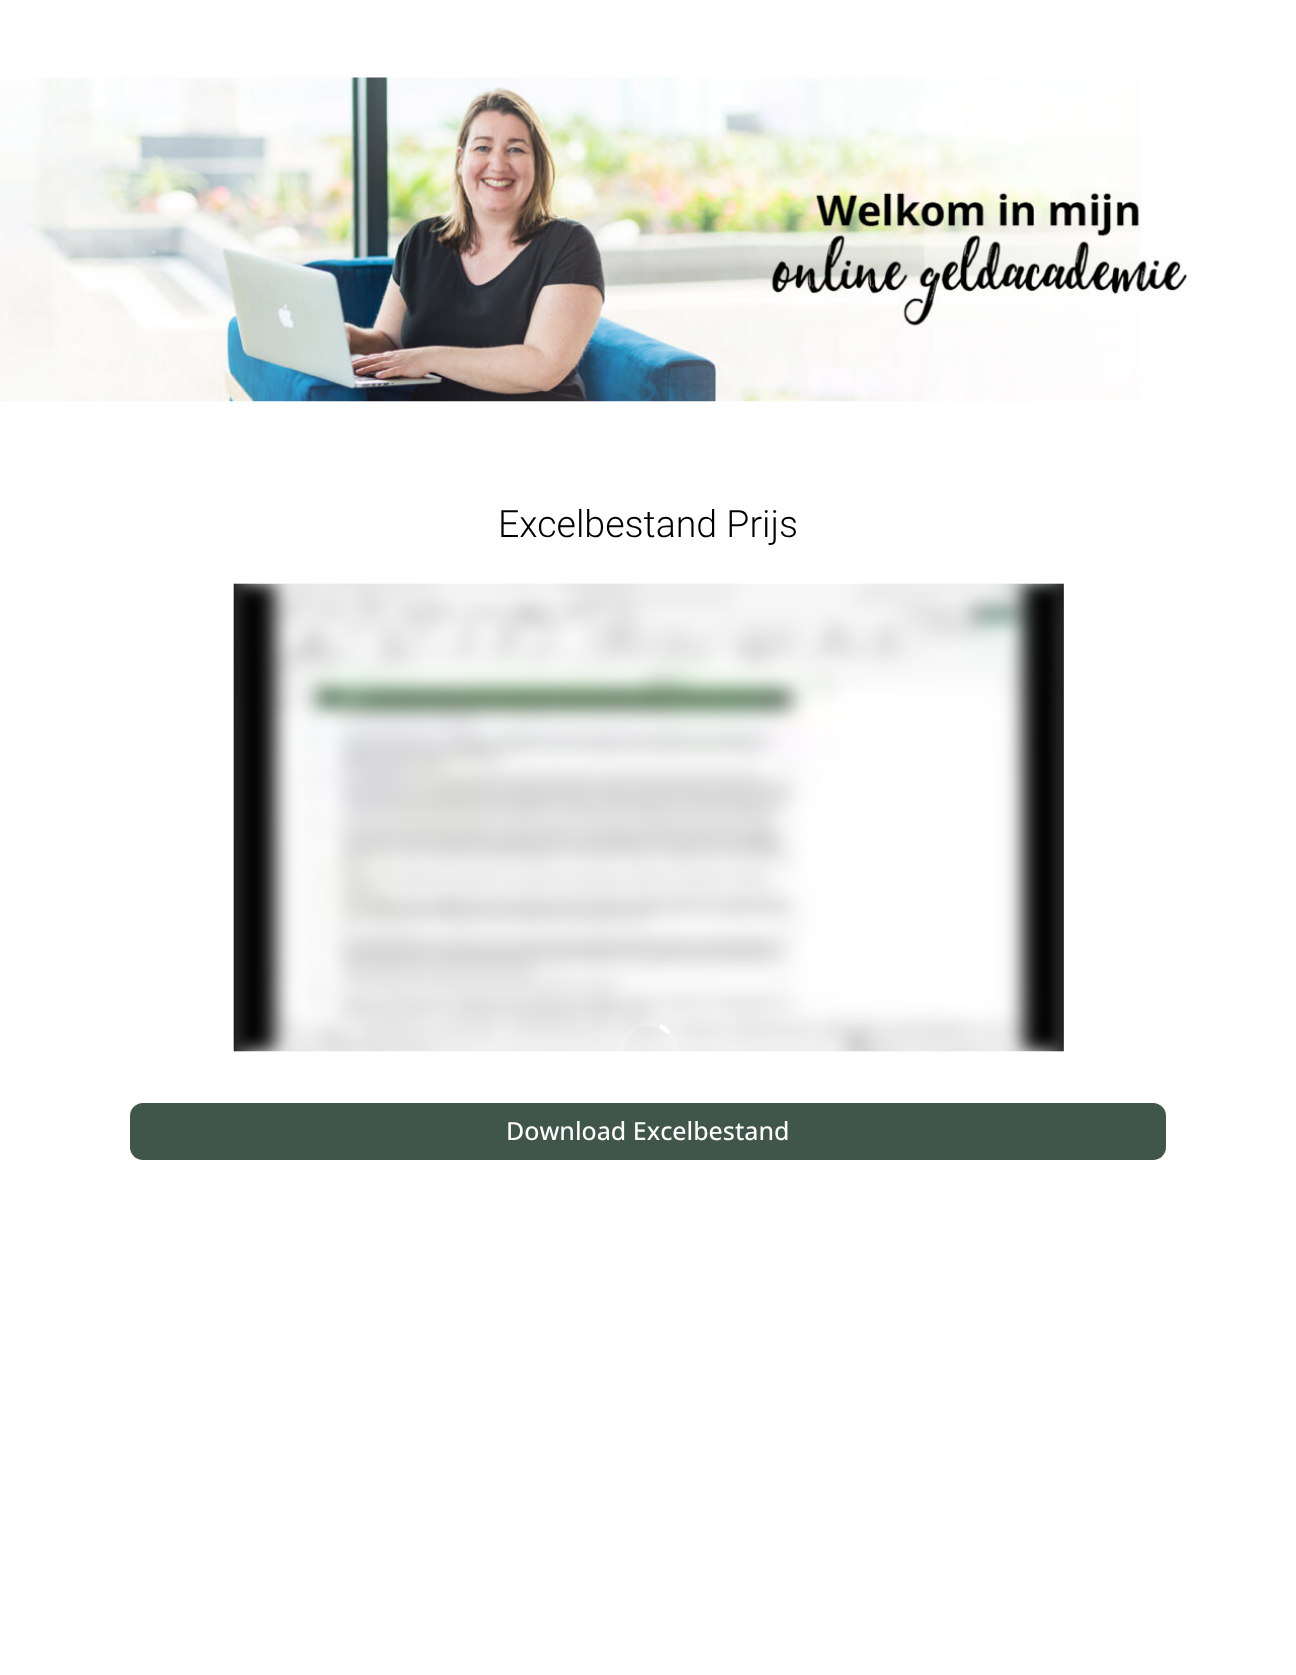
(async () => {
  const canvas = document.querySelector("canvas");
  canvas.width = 1296;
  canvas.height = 1675;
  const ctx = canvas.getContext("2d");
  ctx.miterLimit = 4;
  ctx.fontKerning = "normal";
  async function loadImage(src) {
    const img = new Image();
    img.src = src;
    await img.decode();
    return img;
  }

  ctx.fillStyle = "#ffffff";
  ctx.fillRect(0, 0, 1296, 1675);
  ctx.drawImage(await loadImage("img/1.png"), 0, 77, 1191, 325);
  ctx.drawImage(await loadImage("img/2.png"), 233, 583, 831, 469);
  ctx.fillStyle = "#41564a";
  ctx.beginPath();
  ctx.roundRect(130, 1103, 1036, 57, 13);
  ctx.fill();
  ctx.font = "300 37.5px Roboto";
  ctx.fillStyle = "#000000";
  ctx.fillText("Excelbestand Prijs", 498, 537);
  ctx.font = "500 25px Open Sans";
  ctx.fillStyle = "#ffffff";
  ctx.fillText("Download Excelbestand", 506, 1140);
})();
